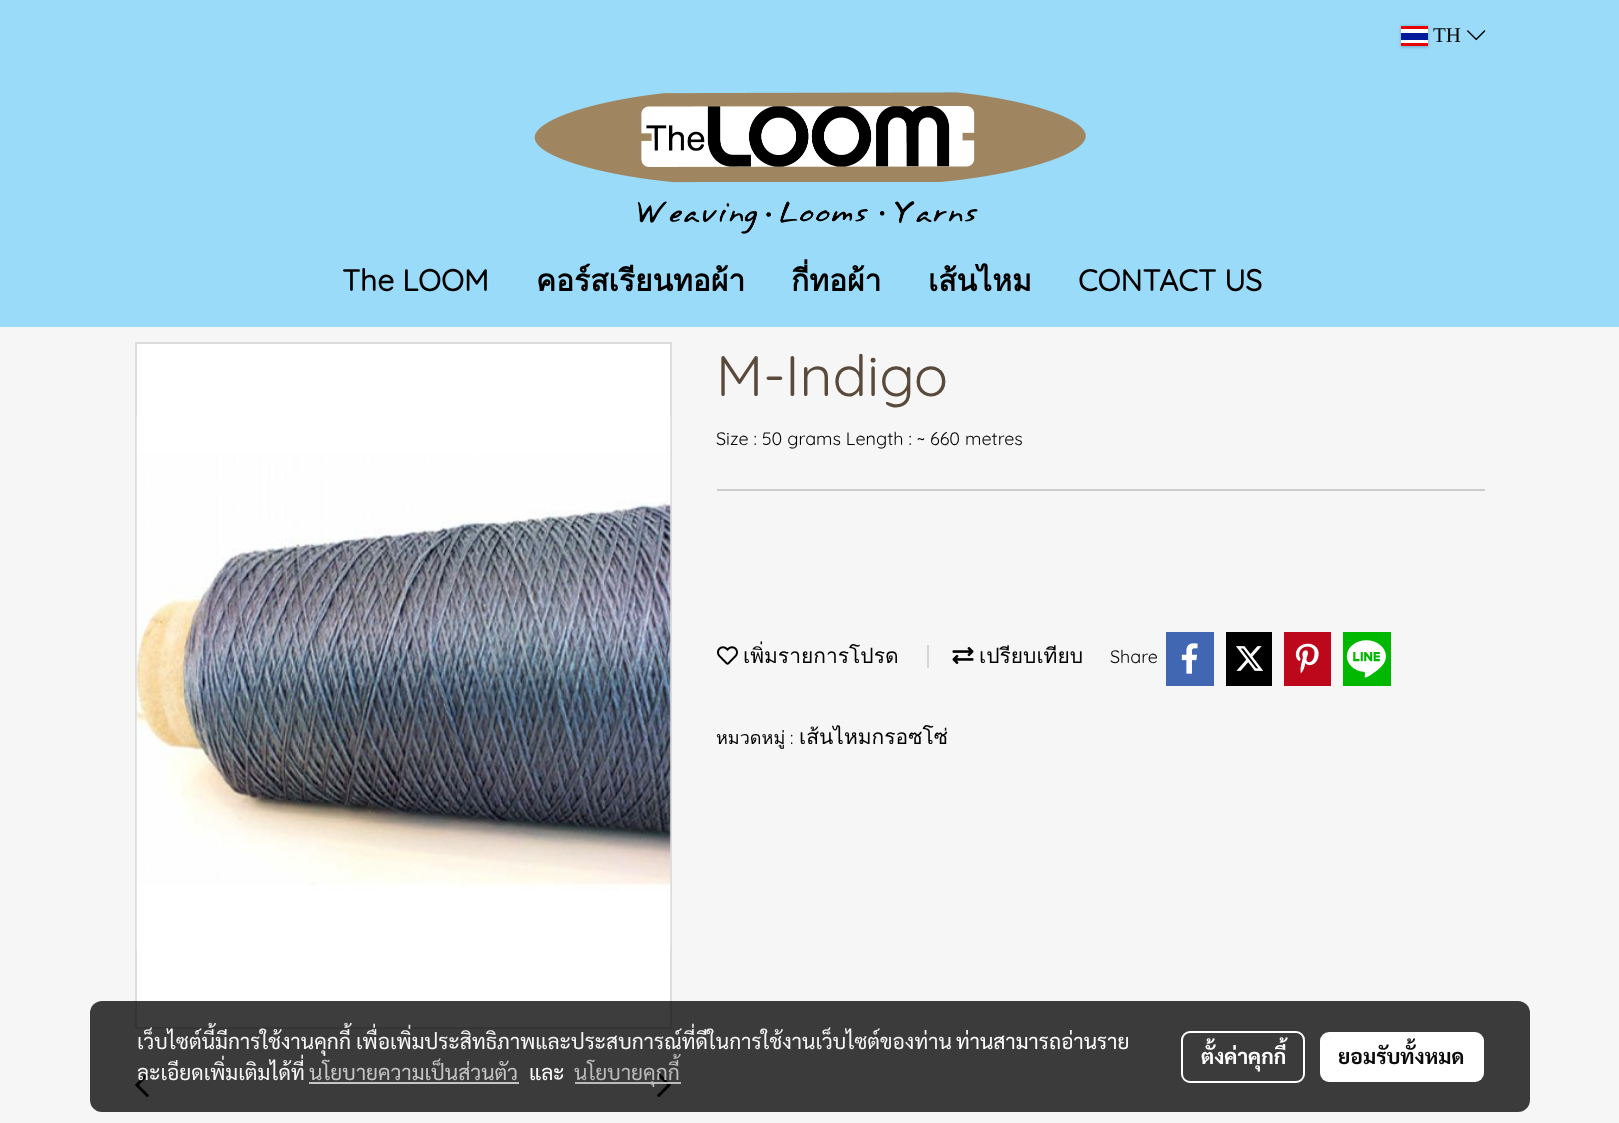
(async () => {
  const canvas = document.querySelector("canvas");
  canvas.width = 1619;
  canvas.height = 1123;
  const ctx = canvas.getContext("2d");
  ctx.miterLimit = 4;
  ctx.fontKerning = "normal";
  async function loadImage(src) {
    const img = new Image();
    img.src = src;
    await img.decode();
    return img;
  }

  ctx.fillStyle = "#f6f6f6";
  ctx.fillRect(0, 0, 1619, 1123);
  ctx.fillStyle = "#99dbf9";
  ctx.fillRect(0, 0, 1619, 327);
  ctx.fillStyle = "rgba(0, 0, 0, 0.25)";
  ctx.filter = "blur(1.5px)";
  ctx.beginPath();
  ctx.rect(1401, 26, 27, 21);
  ctx.fill();
  ctx.filter = "none";
  for (const [x, y, w, h, color] of [
    [1401, 29, 27, 14, "#ffffff"],
    [1401, 33, 27, 7, "#001b9a"],
    [1401, 26, 27, 3, "#e70000"],
    [1401, 43, 27, 3, "#e70000"],
  ]) {
    ctx.fillStyle = color;
    ctx.fillRect(x, y, w, h);
  }
  ctx.drawImage(await loadImage("img/1.png"), 1467, 30, 19, 11);
  ctx.drawImage(await loadImage("img/2.png"), 534, 92, 552, 142);
  ctx.fillStyle = "#ffffff";
  ctx.beginPath();
  ctx.rect(136, 343, 535, 685);
  ctx.fill();
  ctx.strokeStyle = "#dddddd";
  ctx.lineWidth = 2;
  ctx.stroke();
  ctx.drawImage(await loadImage("img/3.png"), 136, 415, 535, 535);
  ctx.drawImage(await loadImage("img/4.png"), 135, 1072, 14, 25);
  ctx.drawImage(await loadImage("img/5.png"), 657, 1072, 14, 25);
  ctx.fillStyle = "#cccccc";
  ctx.fillRect(717, 489, 768, 2);
  ctx.drawImage(await loadImage("img/6.png"), 717, 646, 21, 19);
  ctx.fillStyle = "#d6d6d6";
  ctx.fillRect(927, 645, 2, 23);
  ctx.drawImage(await loadImage("img/7.png"), 952, 647, 22, 17);
  ctx.fillStyle = "#4267b2";
  ctx.fillRect(1166, 632, 48, 54);
  ctx.drawImage(await loadImage("img/8.png"), 1181, 643, 17, 31);
  ctx.fillStyle = "#000000";
  ctx.fillRect(1226, 632, 46, 54);
  ctx.drawImage(await loadImage("img/9.png"), 1236, 646, 28, 25);
  ctx.fillStyle = "#bd081c";
  ctx.fillRect(1284, 632, 47, 54);
  ctx.drawImage(await loadImage("img/10.png"), 1295, 643, 24, 31);
  ctx.fillStyle = "#00b800";
  ctx.fillRect(1343, 632, 48, 54);
  ctx.drawImage(await loadImage("img/11.png"), 1346, 640, 40, 38);
  ctx.fillStyle = "rgba(0, 0, 0, 0.76)";
  ctx.beginPath();
  ctx.roundRect(90, 1001, 1440, 111, 12);
  ctx.fill();
  ctx.fillStyle = "#c5c5c5";
  ctx.fillRect(309, 1082, 210, 2);
  ctx.fillStyle = "rgba(194, 194, 194, 0.95)";
  ctx.fillRect(575, 1082, 106, 2);
  ctx.beginPath();
  ctx.roundRect(1182, 1032, 122, 50, 8);
  ctx.strokeStyle = "#ffffff";
  ctx.stroke();
  ctx.fillStyle = "#ffffff";
  ctx.beginPath();
  ctx.roundRect(1320, 1032, 164, 50, 9);
  ctx.fill();
  ctx.font = "21px Liberation Serif";
  ctx.fillStyle = "#000000";
  ctx.fillText("TH", 1433, 42);
  ctx.font = "bold 30px Quicksand";
  ctx.fillText("The LOOM", 342, 291);
  ctx.font = "bold 30px Loma";
  for (const [text, x, y] of [
    ["คอร์สเรียนทอผ้า", 536, 291],
    ["กี่ทอผ้า", 791, 291],
    ["เส้นไหม", 928, 291],
  ]) {
    ctx.fillText(text, x, y);
  }
  ctx.font = "bold 30px Quicksand";
  ctx.fillText("CONTACT US", 1078, 291);
  ctx.font = "300 57px Quicksand";
  ctx.fillStyle = "#5a4a3b";
  ctx.fillText("M-Indigo", 716, 396);
  ctx.font = "300 18px Quicksand";
  ctx.fillStyle = "#000000";
  ctx.fillText("Size : 50 grams Length : ~ 660 metres", 716, 445);
  ctx.font = "21px Loma";
  ctx.fillText("เพิ่มรายการโปรด", 743, 663);
  ctx.fillText("เปรียบเทียบ", 979, 663);
  ctx.font = "300 18px Quicksand";
  ctx.fillText("Share", 1110, 663);
  ctx.font = "18px Loma";
  ctx.fillText("หมวดหมู่", 716, 744);
  ctx.font = "300 18px Quicksand";
  ctx.fillText(":", 790, 744);
  ctx.font = "21px Loma";
  ctx.fillText("เส้นไหมกรอซโซ่", 799, 744);
  ctx.font = "21px Sarabun";
  ctx.fillStyle = "#f5f5f5";
  ctx.fillText("เว็บไซต์นี้มีการใช้งานคุกกี้ เพื่อเพิ่มประสิทธิภาพและประสบการณ์ที่ดีในการใช้งานเว็บไซต์ของท่าน", 137, 1049);
  ctx.fillStyle = "#ffffff";
  ctx.fillText("ท่านสามารถอ่านราย", 956, 1049);
  ctx.fillStyle = "#f5f5f5";
  ctx.fillText("ละเอียดเพิ่มเติมได้ที่", 137, 1080);
  ctx.fillStyle = "#c5c5c5";
  ctx.fillText("นโยบายความเป็นส่วนตัว", 309, 1080);
  ctx.fillStyle = "#ffffff";
  ctx.fillText("และ", 529, 1080);
  ctx.fillStyle = "#bbbbbb";
  ctx.fillText("นโยบายคุกกี้", 574, 1080);
  ctx.font = "bold 21px Sarabun";
  ctx.fillStyle = "#ffffff";
  ctx.fillText("ตั้งค่าคุกกี้", 1201, 1064);
  ctx.fillStyle = "#0c0c0c";
  ctx.fillText("ยอมรับทั้งหมด", 1338, 1064);
})();
